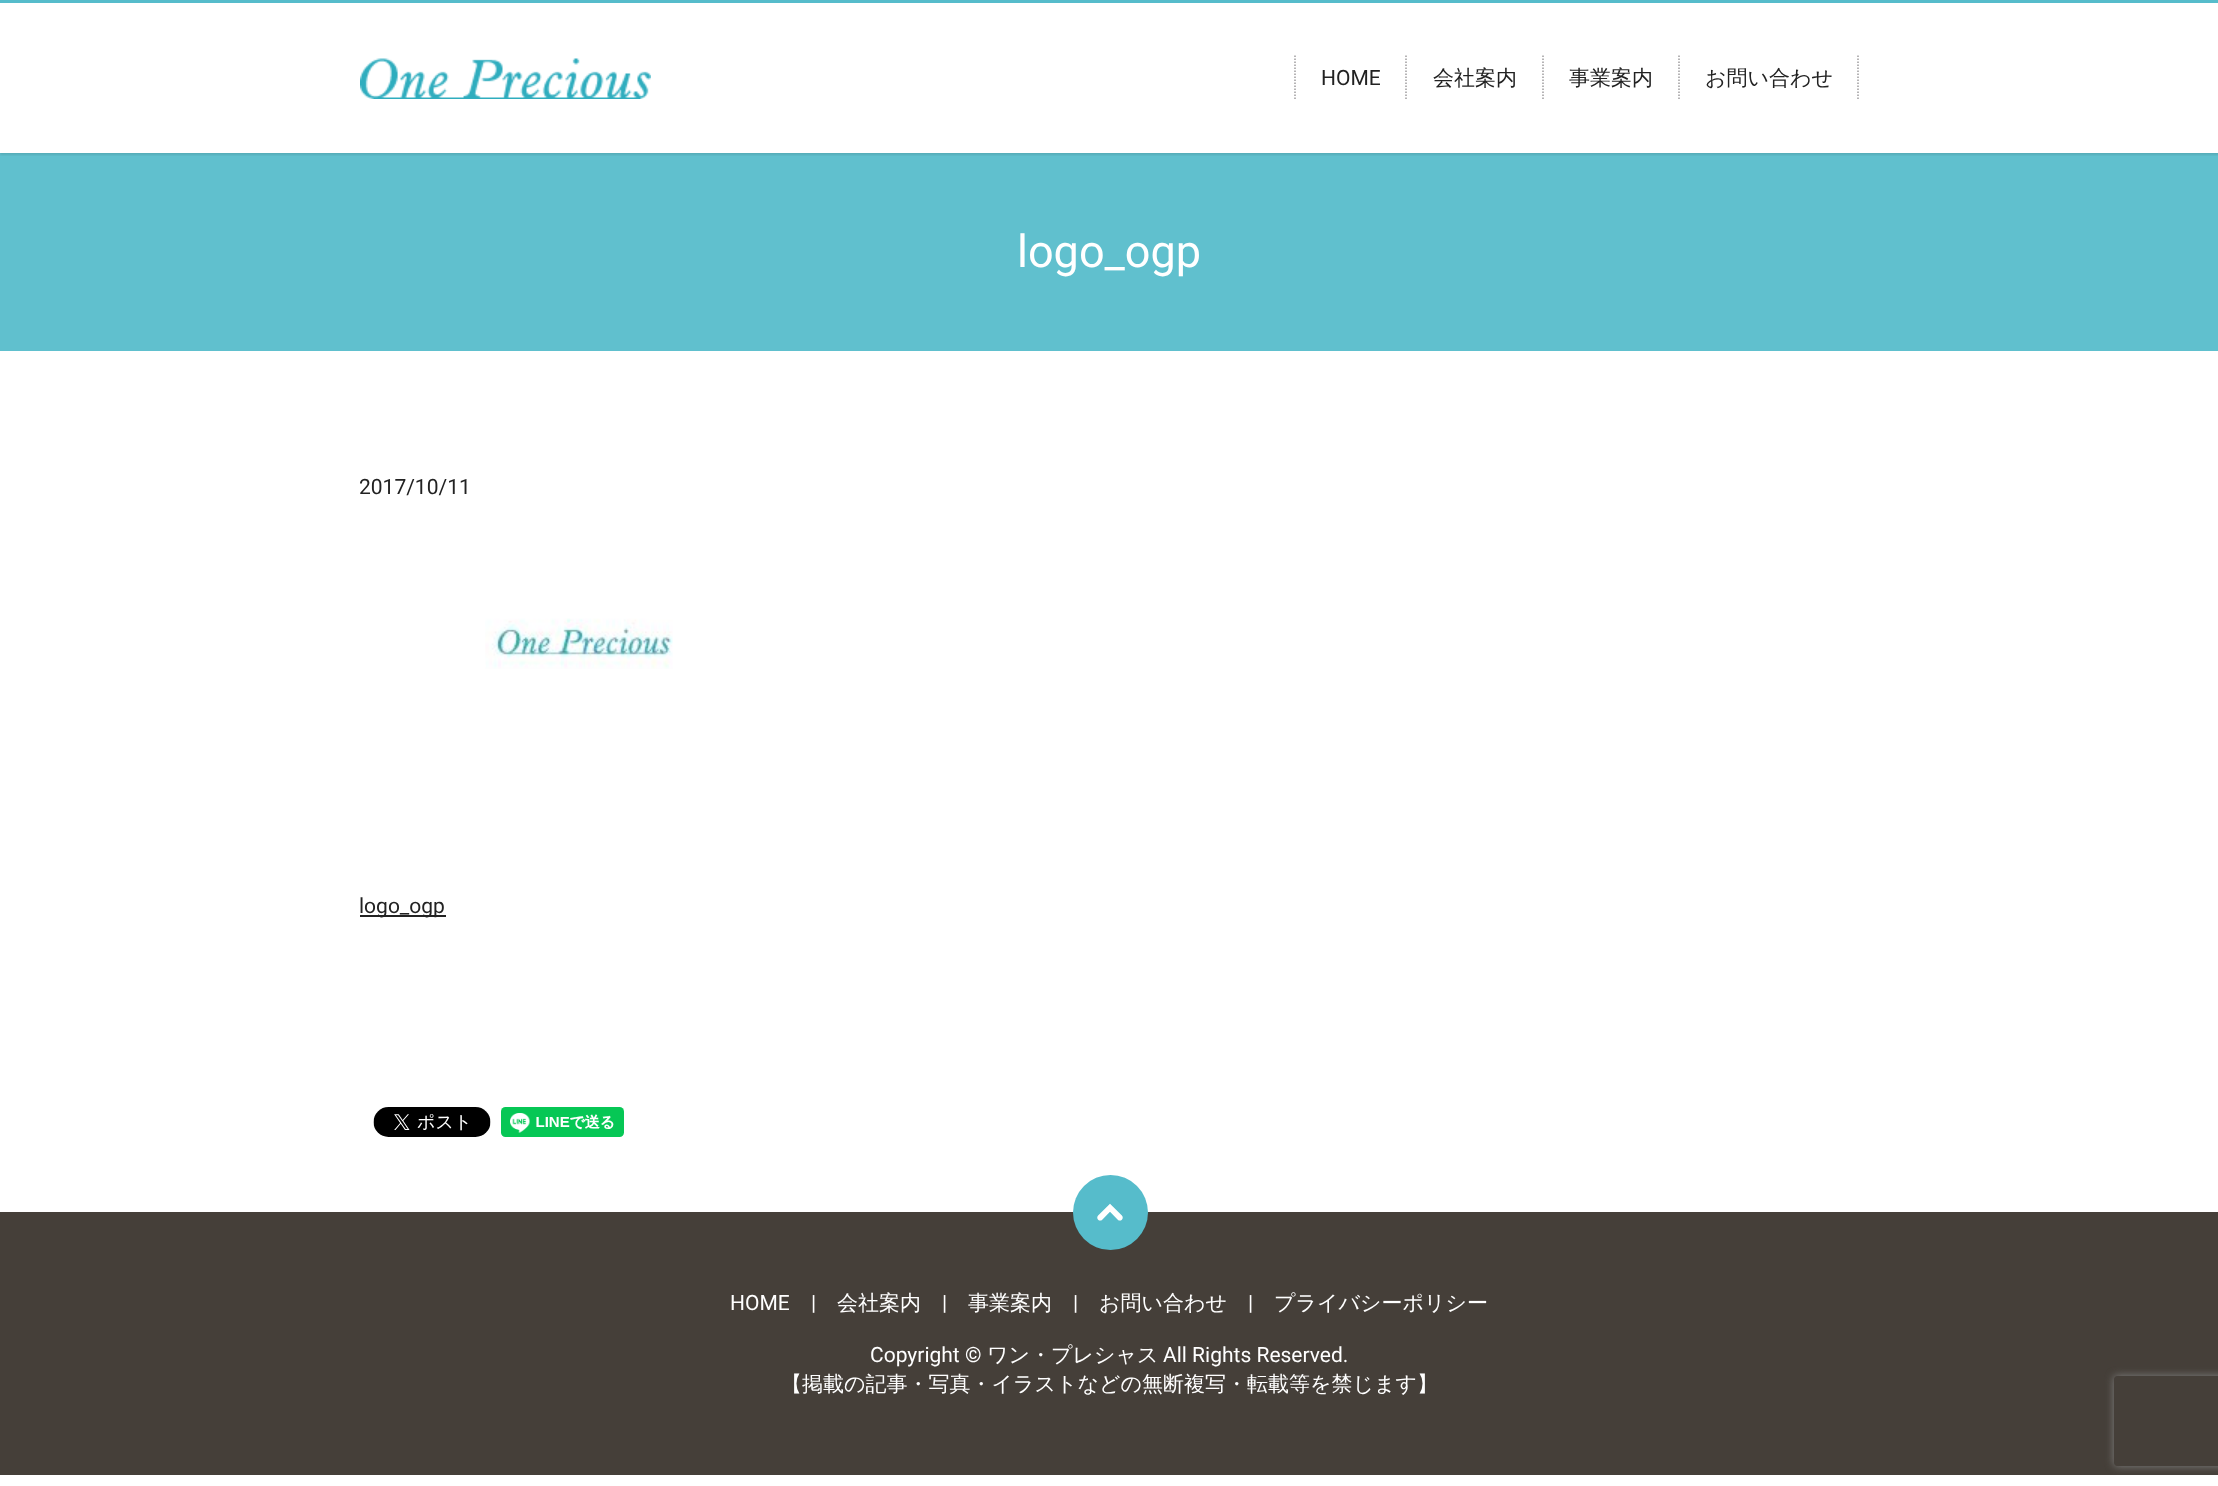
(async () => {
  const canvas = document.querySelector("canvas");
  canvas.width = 2218;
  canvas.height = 1486;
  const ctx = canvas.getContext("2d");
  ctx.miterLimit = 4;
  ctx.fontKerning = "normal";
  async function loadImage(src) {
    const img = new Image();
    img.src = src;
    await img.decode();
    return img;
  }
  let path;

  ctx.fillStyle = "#ffffff";
  ctx.fillRect(0, 0, 2218, 1486);
  ctx.fillStyle = "#60c0ce";
  ctx.fillRect(0, 153, 2218, 198);
  ctx.save();
  ctx.beginPath();
  ctx.rect(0, 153, 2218, 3);
  ctx.clip();
  ctx.fillStyle = "rgba(0, 0, 0, 0.1)";
  ctx.filter = "blur(1px)";
  ctx.beginPath();
  ctx.rect(0, 2, 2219, 153);
  ctx.fill();
  ctx.filter = "none";
  ctx.restore();
  ctx.fillStyle = "#56bccb";
  ctx.fillRect(0, 0, 2218, 3);
  ctx.drawImage(await loadImage("img/1.png"), 360, 58, 291, 41);
  path = new Path2D("M1295 55.5V100.5");
  ctx.strokeStyle = "#9e9c9e";
  ctx.lineWidth = 1.5;
  ctx.setLineDash([1.5, 1.5]);
  ctx.stroke(path);
  path = new Path2D("M1406 55.5V100.5");
  ctx.stroke(path);
  path = new Path2D("M1543 55.5V100.5");
  ctx.stroke(path);
  path = new Path2D("M1858 55.5V100.5");
  ctx.stroke(path);
  path = new Path2D("M1679 55.5V100.5");
  ctx.stroke(path);
  ctx.drawImage(await loadImage("img/2.png"), 485, 618, 188, 51);
  ctx.fillStyle = "#222222";
  ctx.fillRect(360, 915, 86, 2);
  ctx.drawImage(await loadImage("img/3.png"), 373, 1107, 118, 30);
  ctx.drawImage(await loadImage("img/4.png"), 501, 1107, 123, 30);
  ctx.fillStyle = "#453f39";
  ctx.fillRect(0, 1212, 2218, 263);
  ctx.fillStyle = "#56bccb";
  ctx.beginPath();
  ctx.arc(1110.5, 1212.5, 37.5, 0, Math.PI * 2);
  ctx.fill();
  ctx.drawImage(await loadImage("img/5.png"), 1097, 1203, 26, 18);
  ctx.save();
  path = new Path2D("M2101 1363H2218V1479H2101ZM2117 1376H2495C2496.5 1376 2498 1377.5 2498 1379V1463C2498 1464.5 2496.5 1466 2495 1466H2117C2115.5 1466 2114 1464.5 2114 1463V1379C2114 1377.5 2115.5 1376 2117 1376Z");
  ctx.clip(path, "evenodd");
  ctx.fillStyle = "#808080";
  ctx.filter = "blur(4px)";
  ctx.beginPath();
  ctx.roundRect(2114, 1376, 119, 90, 3);
  ctx.fill();
  ctx.filter = "none";
  ctx.restore();
  ctx.font = "21px Roboto";
  ctx.fillStyle = "#222222";
  ctx.fillText("HOME", 1321, 85);
  ctx.font = "500 21px WenQuanYi Zen Hei";
  for (const [text, x, y] of [
    ["会社案内", 1433, 85],
    ["事業案内", 1569, 85],
    ["お問い合わせ", 1705, 85],
  ]) {
    ctx.fillText(text, x, y);
  }
  ctx.font = "45px Roboto";
  ctx.fillStyle = "#ffffff";
  ctx.fillText("logo_ogp", 1017, 267);
  ctx.font = "21px Roboto";
  ctx.fillStyle = "#222222";
  ctx.fillText("2017/10/11", 359, 494);
  ctx.fillText("logo_ogp", 359, 913);
  ctx.fillStyle = "#ffffff";
  ctx.fillText("HOME", 730, 1310);
  ctx.fillText("|", 811, 1310);
  ctx.font = "500 21px WenQuanYi Zen Hei";
  ctx.fillText("会社案内", 837, 1310);
  ctx.font = "21px Roboto";
  ctx.fillText("|", 942, 1310);
  ctx.font = "500 21px WenQuanYi Zen Hei";
  ctx.fillText("事業案内", 968, 1310);
  ctx.font = "21px Roboto";
  ctx.fillText("|", 1073, 1310);
  ctx.font = "500 21px WenQuanYi Zen Hei";
  ctx.fillText("お問い合わせ", 1099, 1310);
  ctx.font = "21px Roboto";
  ctx.fillText("|", 1248, 1310);
  ctx.font = "500 21px WenQuanYi Zen Hei";
  ctx.fillText("プライバシーポリシー", 1274, 1310);
  ctx.font = "21px Roboto";
  ctx.fillText("Copyright ©", 870, 1362);
  ctx.font = "500 21px WenQuanYi Zen Hei";
  ctx.fillText("ワン・プレシャス", 987, 1362);
  ctx.font = "21px Roboto";
  ctx.fillText("All Rights Reserved.", 1163, 1362);
  ctx.font = "500 21px WenQuanYi Zen Hei";
  ctx.fillText("【掲載の記事・写真・イラストなどの無断複写・転載等を禁じます】", 781, 1391);
})();
